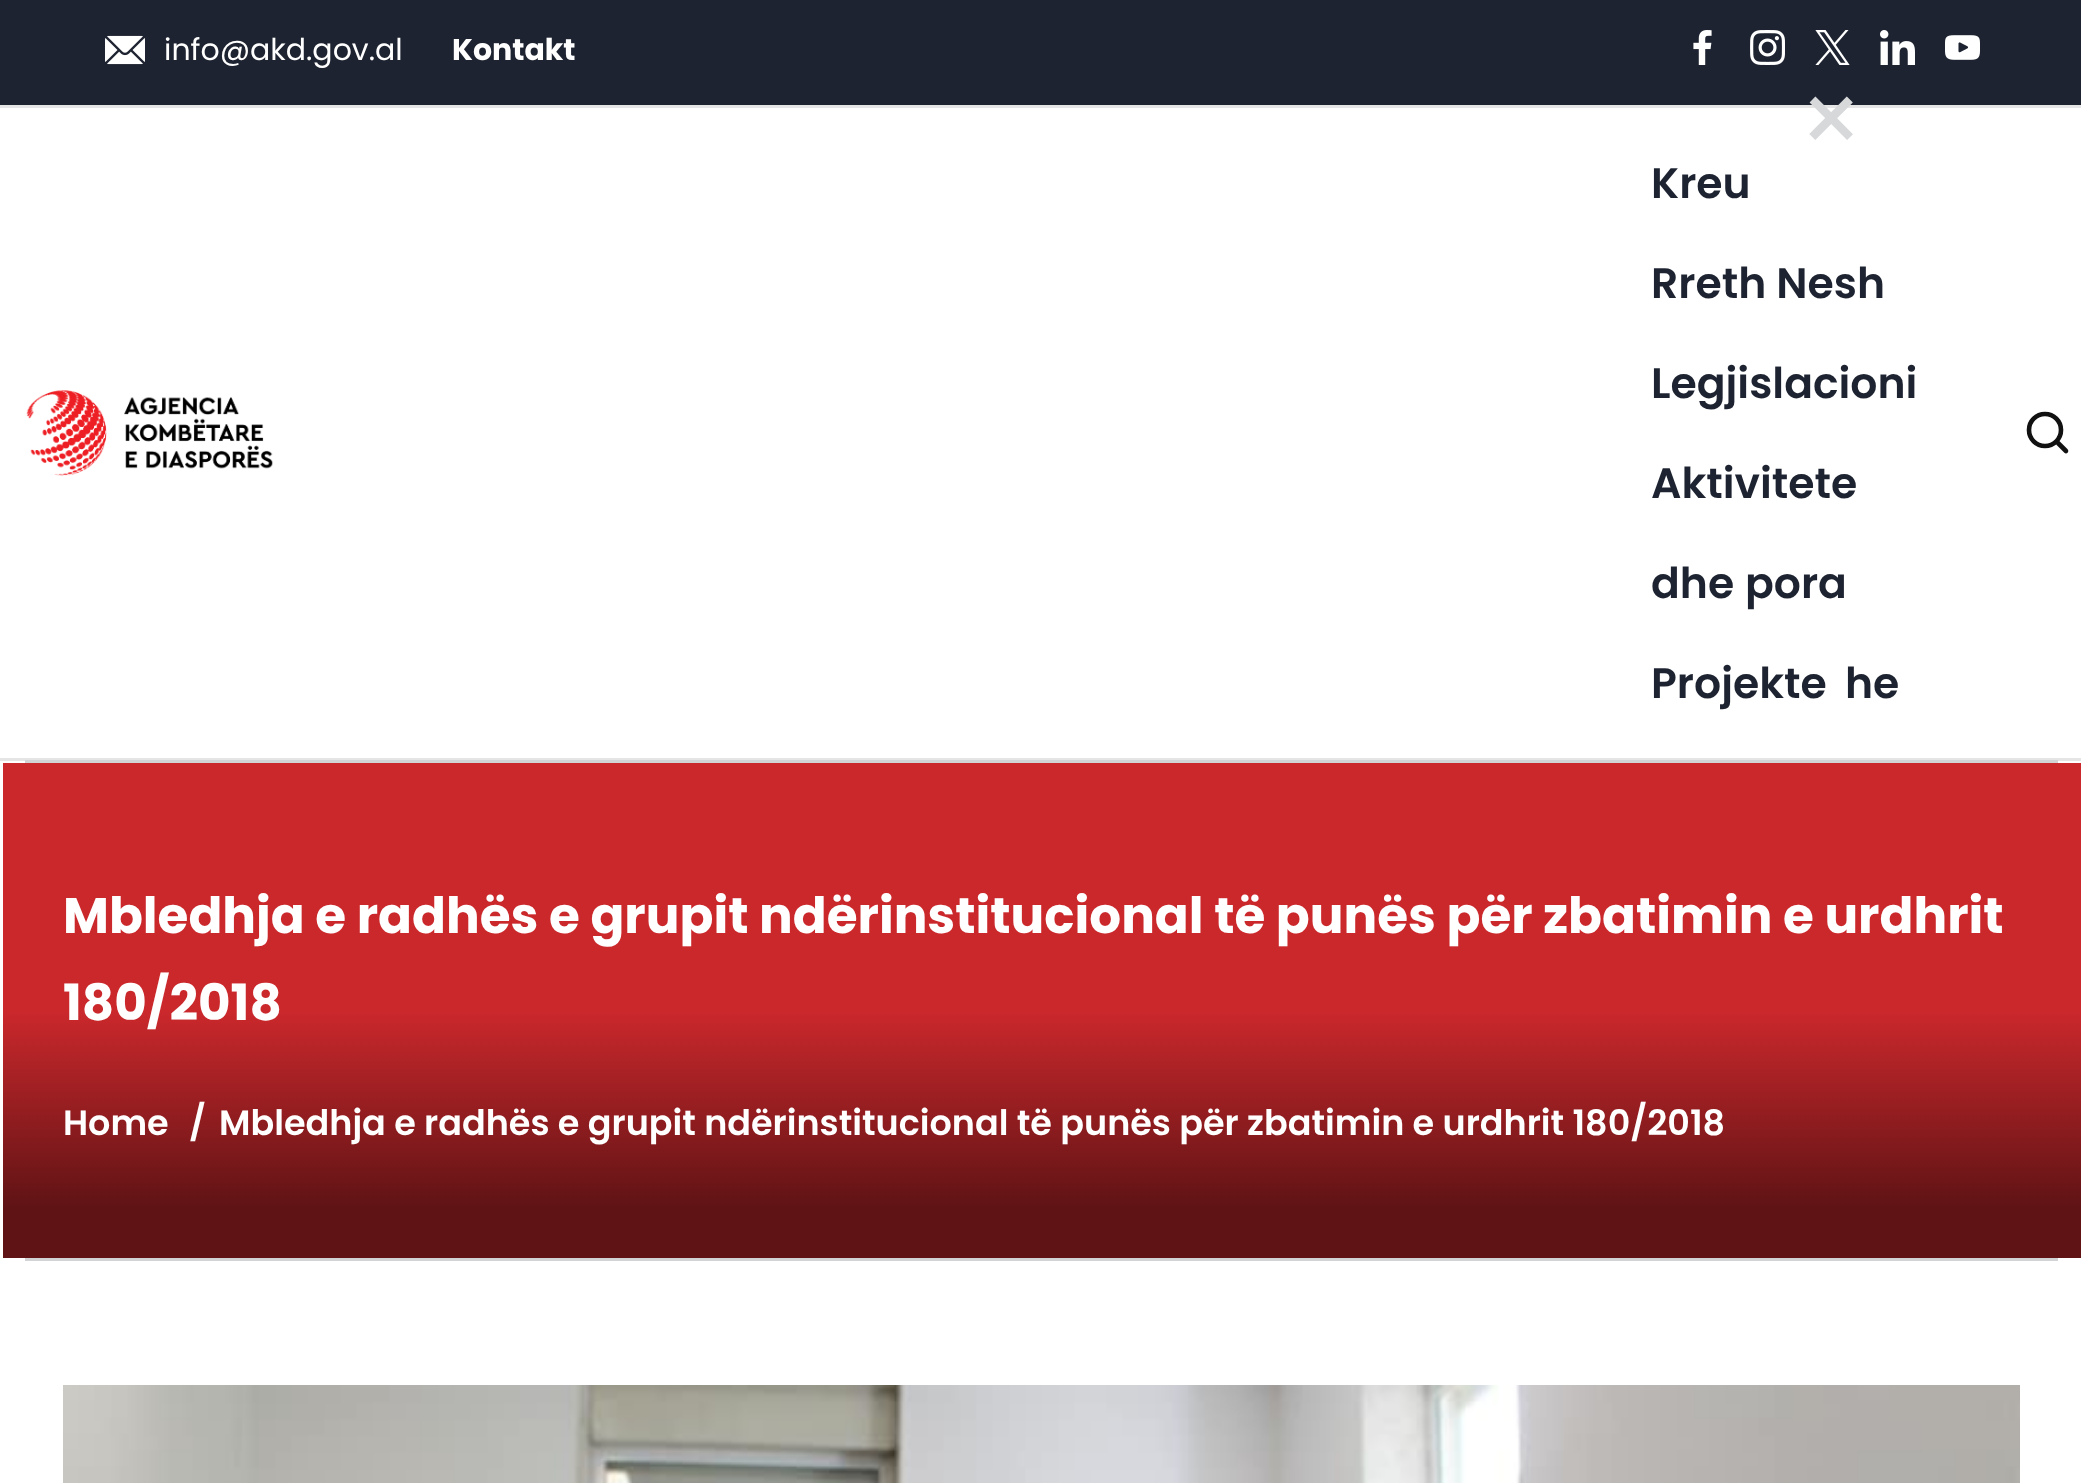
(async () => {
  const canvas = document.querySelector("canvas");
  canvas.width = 2081;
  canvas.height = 1483;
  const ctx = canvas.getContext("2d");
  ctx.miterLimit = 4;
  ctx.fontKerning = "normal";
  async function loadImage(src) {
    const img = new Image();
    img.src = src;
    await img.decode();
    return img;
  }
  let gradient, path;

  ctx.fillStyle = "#ffffff";
  ctx.fillRect(0, 0, 2081, 1483);
  ctx.fillStyle = "#1d2330";
  ctx.fillRect(0, 0, 2081, 105);
  ctx.fillStyle = "#e5e5e5";
  ctx.fillRect(0, 105, 2081, 3);
  ctx.drawImage(await loadImage("img/1.png"), 105, 35, 40, 30);
  ctx.drawImage(await loadImage("img/2.png"), 1693, 30, 19, 35);
  ctx.drawImage(await loadImage("img/3.png"), 1750, 30, 35, 35);
  ctx.drawImage(await loadImage("img/4.png"), 1815, 30, 35, 35);
  ctx.drawImage(await loadImage("img/5.png"), 1880, 30, 35, 35);
  ctx.drawImage(await loadImage("img/6.png"), 1945, 35, 35, 25);
  ctx.fillRect(0, 758, 2081, 3);
  ctx.drawImage(await loadImage("img/7.png"), 26, 390, 247, 86);
  ctx.beginPath();
  ctx.arc(2045, 430, 16, 0, Math.PI * 2);
  ctx.strokeStyle = "#111111";
  ctx.lineWidth = 4.6;
  ctx.stroke();
  path = new Path2D("M2066 451L2058 443");
  ctx.lineCap = "round";
  ctx.stroke(path);
  ctx.fillStyle = "#d2d3d4";
  ctx.fillRect(25, 760, 2033, 3);
  ctx.fillRect(25, 1258, 2033, 3);
  gradient = ctx.createLinearGradient(1043, 1258, 1043, 763);
  gradient.addColorStop(0, "#5f1315");
  gradient.addColorStop(0.1, "#5f1315");
  gradient.addColorStop(0.5, "#cb282c");
  gradient.addColorStop(1, "#cb282c");
  ctx.fillStyle = gradient;
  ctx.fillRect(3, 763, 2078, 495);
  ctx.drawImage(await loadImage("img/8.png"), 63, 1385, 1957, 98);
  ctx.font = "30px Poppins";
  ctx.fillStyle = "#ffffff";
  ctx.fillText("info@akd.gov.al", 164, 60);
  ctx.font = "bold 30px Poppins";
  ctx.fillText("Kontakt", 452, 60);
  ctx.font = "100px Poppins";
  ctx.fillStyle = "#d7d8da";
  ctx.fillText("×", 1799, 155);
  ctx.font = "600 42.5px Poppins";
  ctx.fillStyle = "#1d2330";
  for (const [text, x, y] of [
    ["Kreu", 1651, 198],
    ["Rreth Nesh", 1651, 298],
    ["Legjislacioni", 1651, 398],
    ["Aktivitete", 1651, 498],
    ["dhe", 1651, 598],
    ["Projekte", 1651, 698],
    ["pora", 1745, 598],
    ["he", 1845, 698],
  ]) {
    ctx.fillText(text, x, y);
  }
  ctx.font = "bold 50px Poppins";
  ctx.fillStyle = "#ffffff";
  ctx.fillText("Mbledhja e radhës e grupit ndërinstitucional të punës për zbatimin e urdhrit", 63, 933);
  ctx.fillText("180/2018", 63, 1020);
  ctx.font = "600 35px Poppins";
  for (const [text, x, y] of [
    ["Home", 63, 1135],
    ["/", 189, 1135],
    ["Mbledhja e radhës e grupit ndërinstitucional të punës për zbatimin e urdhrit 180/2018", 219, 1135],
  ]) {
    ctx.fillText(text, x, y);
  }
})();
